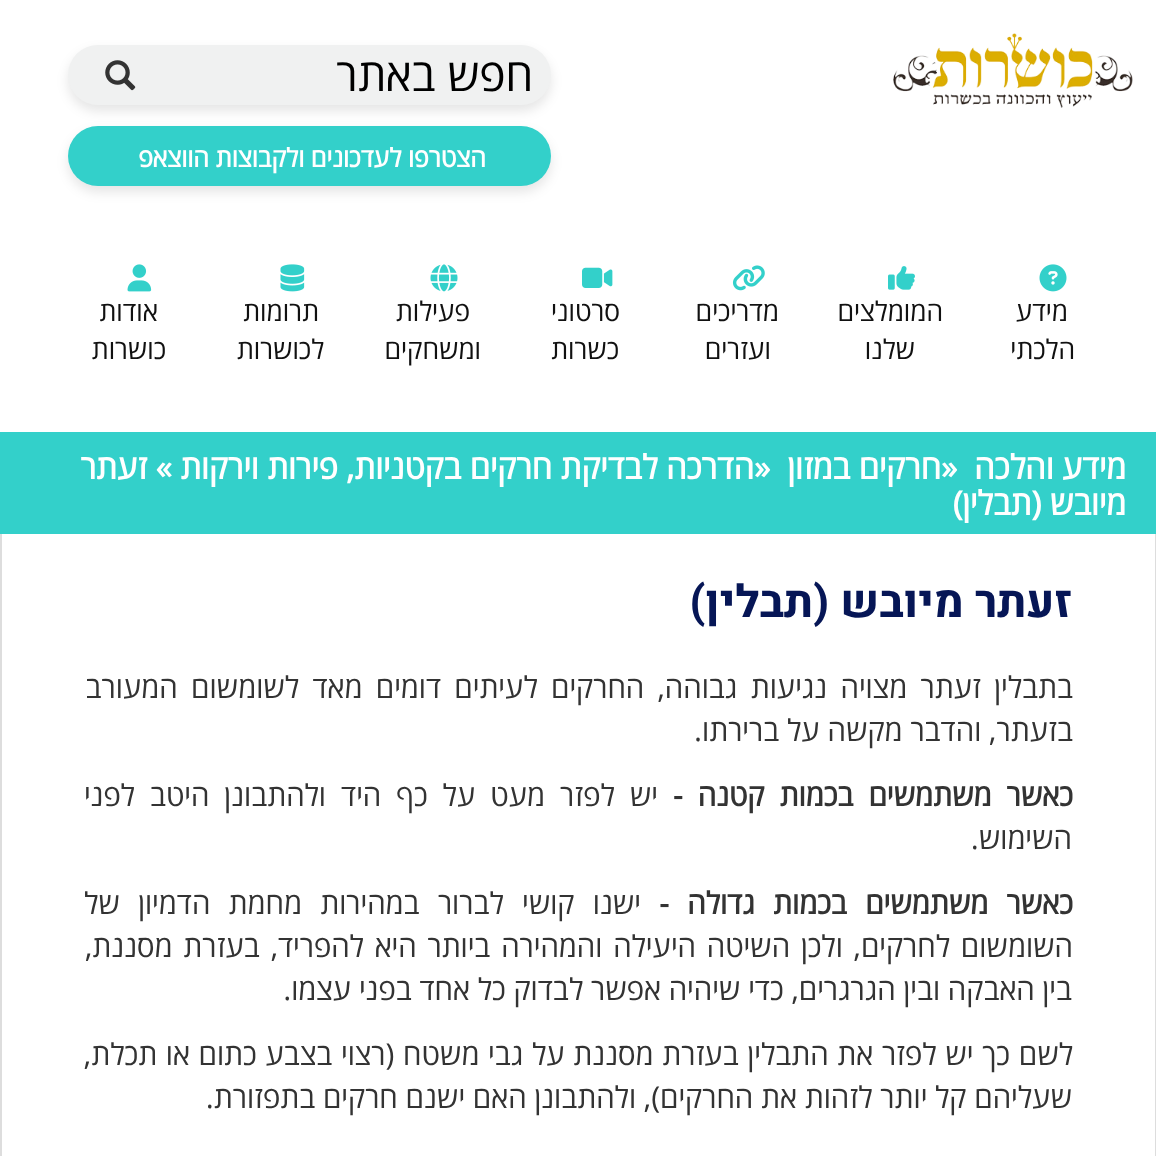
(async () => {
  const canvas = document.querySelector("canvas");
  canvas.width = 1156;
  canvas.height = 1156;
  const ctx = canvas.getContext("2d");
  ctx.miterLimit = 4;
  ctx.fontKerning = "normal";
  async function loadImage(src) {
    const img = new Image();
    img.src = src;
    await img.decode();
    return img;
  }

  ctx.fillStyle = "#ffffff";
  ctx.fillRect(0, 0, 1156, 1156);
  ctx.drawImage(await loadImage("img/1.png"), 893, 33, 240, 75);
  ctx.fillStyle = "rgba(0, 0, 0, 0.1)";
  ctx.filter = "blur(6px)";
  ctx.beginPath();
  ctx.roundRect(68, 132, 483, 60, 30);
  ctx.fill();
  ctx.filter = "none";
  ctx.fillStyle = "#33d0ca";
  ctx.beginPath();
  ctx.roundRect(68, 126, 483, 60, 30);
  ctx.fill();
  ctx.fillStyle = "rgba(0, 0, 0, 0.1)";
  ctx.filter = "blur(6px)";
  ctx.beginPath();
  ctx.roundRect(68, 51, 483, 60, 30);
  ctx.fill();
  ctx.filter = "none";
  ctx.fillStyle = "#f0f1f1";
  ctx.beginPath();
  ctx.roundRect(68, 45, 483, 60, 30);
  ctx.fill();
  ctx.drawImage(await loadImage("img/2.png"), 105, 60, 31, 31);
  ctx.drawImage(await loadImage("img/3.png"), 1039, 264, 28, 28);
  ctx.drawImage(await loadImage("img/4.png"), 888, 266, 27, 24);
  ctx.drawImage(await loadImage("img/5.png"), 732, 265, 33, 26);
  ctx.drawImage(await loadImage("img/6.png"), 582, 267, 31, 21);
  ctx.drawImage(await loadImage("img/7.png"), 430, 264, 28, 28);
  ctx.drawImage(await loadImage("img/8.png"), 280, 264, 25, 28);
  ctx.drawImage(await loadImage("img/9.png"), 127, 264, 25, 28);
  for (const [x, y, w, h, color] of [
    [0, 432, 1156, 102, "#33d0ca"],
    [1155, 534, 1, 622, "#dddddd"],
    [0, 534, 2, 622, "#dddddd"],
  ]) {
    ctx.fillStyle = color;
    ctx.fillRect(x, y, w, h);
  }
  ctx.direction = "rtl";
  ctx.font = "45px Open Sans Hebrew";
  ctx.fillStyle = "#000000";
  ctx.fillText("חפש באתר", 533, 91);
  ctx.font = "bold 25.5px Open Sans Hebrew";
  ctx.fillStyle = "#ffffff";
  ctx.fillText("הצטרפו לעדכונים ולקבוצות הווצאפ", 486, 167);
  ctx.font = "27px Open Sans Hebrew";
  ctx.fillStyle = "#111111";
  for (const [text, x, y] of [
    ["מידע", 1068, 321],
    ["הלכתי", 1075, 359],
    ["המומלצים", 943, 321],
    ["שלנו", 915, 359],
    ["מדריכים", 779, 321],
    ["ועזרים", 771, 359],
    ["סרטוני", 620, 321],
    ["כשרות", 619, 359],
    ["פעילות", 470, 321],
    ["ומשחקים", 481, 359],
    ["תרומות", 319, 321],
    ["לכושרות", 324, 359],
    ["אודות", 158, 321],
    ["כושרות", 166, 359],
  ]) {
    ctx.fillText(text, x, y);
  }
  ctx.font = "bold 33px Open Sans Hebrew";
  ctx.fillStyle = "#ffffff";
  ctx.fillText("מידע והלכה", 1126, 479);
  ctx.direction = "ltr";
  ctx.fillText("»", 941, 479);
  ctx.direction = "rtl";
  ctx.fillText("חרקים במזון", 941, 479);
  ctx.direction = "ltr";
  ctx.fillText("»", 754, 479);
  ctx.direction = "rtl";
  for (const [text, x, y] of [
    ["הדרכה לבדיקת חרקים בקטניות, פירות וירקות", 754, 479],
    ["» זעתר", 172, 479],
    ["מיובש (תבלין)", 1126, 515],
  ]) {
    ctx.fillText(text, x, y);
  }
  ctx.font = "bold 45px Heebo";
  ctx.fillStyle = "#061656";
  ctx.fillText("זעתר מיובש (תבלין)", 1072, 617);
  ctx.wordSpacing = "5.5px";
  ctx.font = "30px Open Sans Hebrew";
  ctx.fillStyle = "#333333";
  ctx.fillText("בתבלין זעתר מצויה נגיעות גבוהה, החרקים לעיתים דומים מאד לשומשום המעורב", 1073, 698);
  ctx.wordSpacing = "0px";
  ctx.fillText("בזעתר, והדבר מקשה על ברירתו.", 1073, 741);
  ctx.wordSpacing = "7.25px";
  ctx.font = "bold 30px Open Sans Hebrew";
  ctx.fillText("כאשר משתמשים בכמות קטנה -", 1073, 806);
  ctx.font = "30px Open Sans Hebrew";
  ctx.fillText("יש לפזר מעט על כף היד ולהתבונן היטב לפני", 658, 806);
  ctx.wordSpacing = "0px";
  ctx.fillText("השימוש.", 1072, 849);
  ctx.wordSpacing = "10.5px";
  ctx.font = "bold 30px Open Sans Hebrew";
  ctx.fillText("כאשר משתמשים בכמות גדולה -", 1073, 914);
  ctx.font = "30px Open Sans Hebrew";
  ctx.fillText("ישנו קושי לברור במהירות מחמת הדמיון של", 641, 914);
  ctx.wordSpacing = "3px";
  ctx.fillText("השומשום לחרקים, ולכן השיטה היעילה והמהירה ביותר היא להפריד, בעזרת מסננת,", 1073, 957);
  ctx.wordSpacing = "0px";
  ctx.fillText("בין האבקה ובין הגרגרים, כדי שיהיה אפשר לבדוק כל אחד בפני עצמו.", 1072, 1000);
  ctx.wordSpacing = "0.9px";
  ctx.fillText("לשם כך יש לפזר את התבלין בעזרת מסננת על גבי משטח (רצוי בצבע כתום או תכלת,", 1073, 1065);
  ctx.wordSpacing = "0px";
  ctx.fillText("שעליהם קל יותר לזהות את החרקים), ולהתבונן האם ישנם חרקים בתפזורת.", 1072, 1108);
})();
